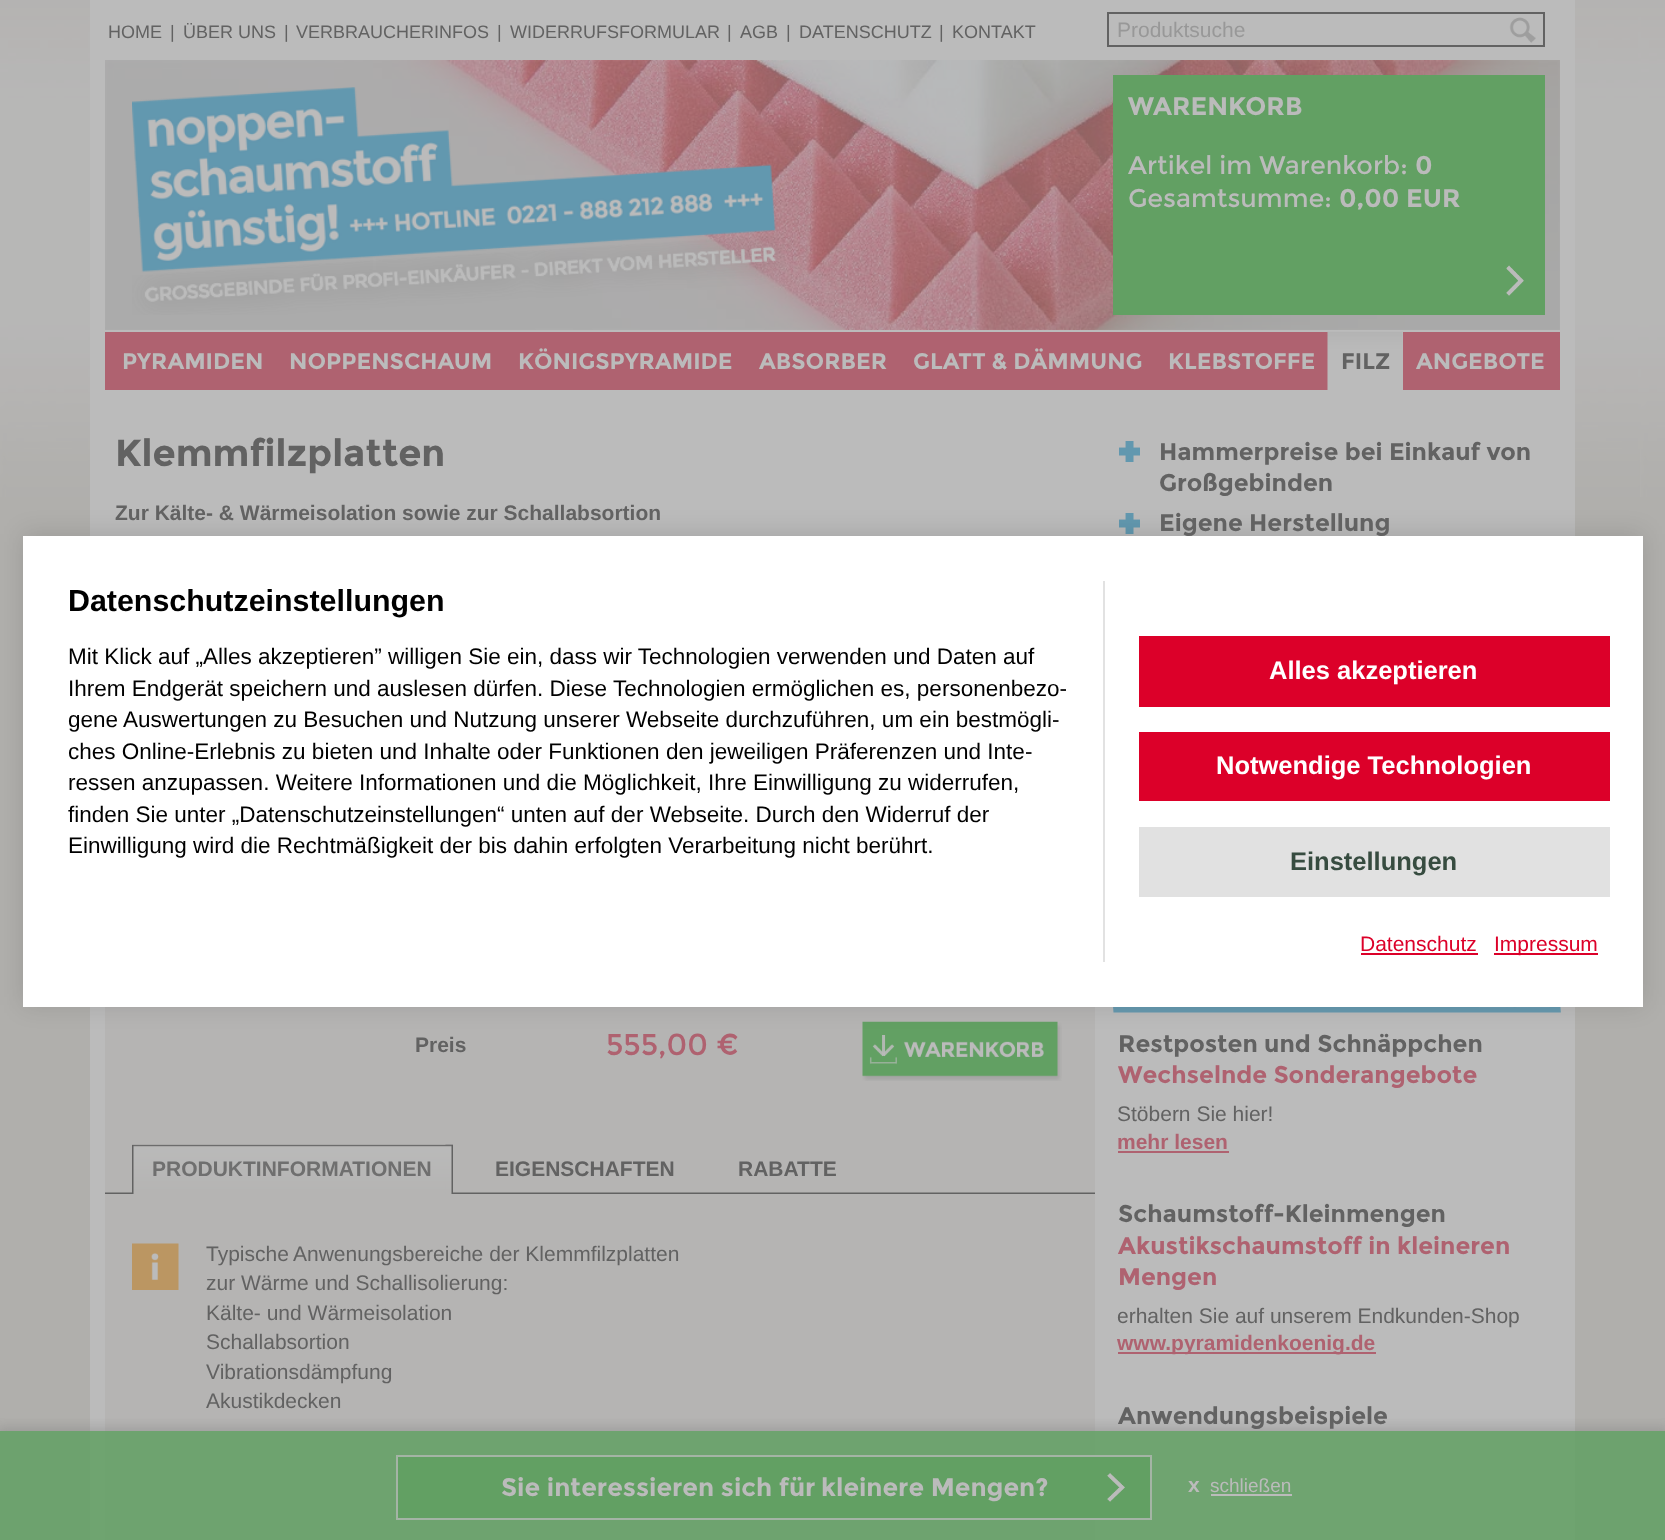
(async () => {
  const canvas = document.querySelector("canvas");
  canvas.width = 1665;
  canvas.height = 1540;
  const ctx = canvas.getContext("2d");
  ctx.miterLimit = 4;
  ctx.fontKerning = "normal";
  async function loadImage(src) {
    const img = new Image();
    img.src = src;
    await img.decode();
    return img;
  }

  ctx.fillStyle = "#b0afac";
  ctx.fillRect(0, 0, 1665, 1540);
  ctx.drawImage(await loadImage("img/1.png"), 0, 0, 1665, 497);
  ctx.fillStyle = "#bbbbbb";
  ctx.fillRect(90, 0, 1485, 1540);
  ctx.strokeStyle = "#626262";
  ctx.lineWidth = 2;
  ctx.strokeRect(1108, 13, 436, 33);
  ctx.drawImage(await loadImage("img/2.png"), 1509, 17, 27, 26);
  ctx.drawImage(await loadImage("img/3.png"), 105, 60, 1455, 270);
  ctx.drawImage(await loadImage("img/4.png"), 132, 87, 653, 228);
  ctx.fillStyle = "#62a063";
  ctx.fillRect(1113, 75, 432, 240);
  ctx.drawImage(await loadImage("img/5.png"), 1506, 265, 18, 31);
  ctx.fillStyle = "#af6270";
  ctx.fillRect(105, 332, 1455, 58);
  ctx.fillStyle = "#bbbbbb";
  ctx.fillRect(1402, 332, 1, 58);
  ctx.drawImage(await loadImage("img/6.png"), 1327, 331, 76, 59);
  ctx.fillStyle = "#b5b4b3";
  ctx.fillRect(105, 1007, 990, 533);
  ctx.drawImage(await loadImage("img/7.png"), 862, 1021, 200, 60);
  ctx.drawImage(await loadImage("img/8.png"), 105, 1192, 990, 2);
  ctx.drawImage(await loadImage("img/9.png"), 132, 1144, 321, 50);
  ctx.drawImage(await loadImage("img/10.png"), 445, 1144, 8, 50);
  ctx.drawImage(await loadImage("img/11.png"), 132, 1243, 47, 47);
  ctx.drawImage(await loadImage("img/12.png"), 1119, 441, 21, 21);
  ctx.drawImage(await loadImage("img/12.png"), 1119, 513, 21, 21);
  ctx.drawImage(await loadImage("img/13.png"), 1110, 1007, 451, 6);
  ctx.fillStyle = "#af6270";
  ctx.fillRect(1118, 1151, 111, 2);
  ctx.fillRect(1118, 1352, 258, 2);
  ctx.fillStyle = "rgba(0, 0, 0, 0.12)";
  ctx.filter = "blur(12px)";
  ctx.beginPath();
  ctx.rect(23, 534, 1620, 471);
  ctx.fill();
  ctx.filter = "none";
  ctx.save();
  ctx.beginPath();
  ctx.rect(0, 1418, 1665, 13);
  ctx.clip();
  ctx.fillStyle = "rgba(98, 98, 98, 0.26)";
  ctx.filter = "blur(6px)";
  ctx.beginPath();
  ctx.rect(-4, 1427, 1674, 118);
  ctx.fill();
  ctx.filter = "none";
  ctx.restore();
  ctx.fillStyle = "rgba(98, 160, 99, 0.85)";
  ctx.fillRect(0, 1431, 1665, 109);
  ctx.fillStyle = "#62a063";
  ctx.fillRect(398, 1457, 752, 61);
  ctx.drawImage(await loadImage("img/14.png"), 1107, 1473, 18, 29);
  ctx.strokeStyle = "#a4b4a5";
  ctx.strokeRect(397, 1456, 754, 63);
  ctx.fillStyle = "#bbbbbb";
  ctx.fillRect(1211, 1494, 81, 2);
  ctx.font = "18px Liberation Sans";
  ctx.fillStyle = "#626262";
  for (const [text, x, y] of [
    ["HOME", 108, 38],
    ["|", 170, 38],
    ["ÜBER UNS", 183, 38],
    ["|", 284, 38],
    ["VERBRAUCHERINFOS", 296, 38],
    ["|", 497, 38],
    ["WIDERRUFSFORMULAR", 510, 38],
    ["|", 727, 38],
    ["AGB", 740, 38],
    ["|", 786, 38],
    ["DATENSCHUTZ", 799, 38],
    ["|", 939, 38],
    ["KONTAKT", 952, 38],
  ]) {
    ctx.fillText(text, x, y);
  }
  ctx.font = "21px Liberation Sans";
  ctx.fillStyle = "#989898";
  ctx.fillText("Produktsuche", 1117, 37);
  ctx.font = "bold 25.5px Montserrat";
  ctx.fillStyle = "#bbbbbb";
  ctx.fillText("WARENKORB", 1128, 115);
  ctx.font = "25.5px Montserrat";
  ctx.fillText("Artikel im Warenkorb:", 1128, 174);
  ctx.font = "bold 25.5px Montserrat";
  ctx.fillText("0", 1415, 174);
  ctx.font = "25.5px Montserrat";
  ctx.fillText("Gesamtsumme:", 1128, 207);
  ctx.font = "bold 25.5px Montserrat";
  ctx.fillText("0,00 EUR", 1339, 207);
  ctx.font = "bold 22.5px Montserrat";
  for (const [text, x, y] of [
    ["PYRAMIDEN", 122, 369],
    ["NOPPENSCHAUM", 289, 369],
    ["KÖNIGSPYRAMIDE", 518, 369],
    ["ABSORBER", 759, 369],
    ["GLATT & DÄMMUNG", 913, 369],
    ["KLEBSTOFFE", 1168, 369],
  ]) {
    ctx.fillText(text, x, y);
  }
  ctx.fillStyle = "#626262";
  ctx.fillText("FILZ", 1341, 369);
  ctx.fillStyle = "#bbbbbb";
  ctx.fillText("ANGEBOTE", 1416, 369);
  ctx.font = "bold 37.5px Montserrat";
  ctx.fillStyle = "#626262";
  ctx.fillText("Klemmfilzplatten", 115, 466);
  ctx.font = "bold 21px Liberation Sans";
  ctx.fillText("Zur Kälte- & Wärmeisolation sowie zur Schallabsortion", 115, 520);
  ctx.fillText("Preis", 415, 1052);
  ctx.font = "30px Montserrat";
  ctx.fillStyle = "#af6270";
  ctx.fillText("555,00 €", 606, 1055);
  ctx.font = "bold 21px Liberation Sans";
  ctx.fillStyle = "#6f6f6f";
  ctx.fillText("PRODUKTINFORMATIONEN", 152, 1176);
  ctx.fillStyle = "#626262";
  ctx.fillText("EIGENSCHAFTEN", 495, 1176);
  ctx.fillText("RABATTE", 738, 1176);
  ctx.font = "21px Liberation Sans";
  for (const [text, x, y] of [
    ["Typische", 206, 1261],
    ["Anwenungsbereiche der Klemmfilzplatten", 293, 1261],
    ["zur Wärme und Schallisolierung:", 206, 1290],
    ["Kälte- und Wärmeisolation", 206, 1320],
    ["Schallabsortion", 206, 1349],
    ["Vibrationsdämpfung", 206, 1379],
    ["Akustikdecken", 206, 1408],
  ]) {
    ctx.fillText(text, x, y);
  }
  ctx.font = "bold 24px Montserrat";
  for (const [text, x, y] of [
    ["Hammerpreise bei Einkauf von", 1159, 460],
    ["Großgebinden", 1159, 491],
    ["Eigene Herstellung", 1159, 531],
    ["Restposten und Schnäppchen", 1118, 1052],
  ]) {
    ctx.fillText(text, x, y);
  }
  ctx.fillStyle = "#af6270";
  ctx.fillText("Wechselnde Sonderangebote", 1118, 1083);
  ctx.font = "21px Liberation Sans";
  ctx.fillStyle = "#626262";
  ctx.fillText("Stöbern Sie hier!", 1117, 1121);
  ctx.font = "bold 21px Liberation Sans";
  ctx.fillStyle = "#af6270";
  ctx.fillText("mehr lesen", 1117, 1149);
  ctx.font = "bold 24px Montserrat";
  ctx.fillStyle = "#626262";
  ctx.fillText("Schaumstoff-Kleinmengen", 1118, 1222);
  ctx.fillStyle = "#af6270";
  ctx.fillText("Akustikschaumstoff in kleineren", 1118, 1254);
  ctx.fillText("Mengen", 1118, 1285);
  ctx.font = "21px Liberation Sans";
  ctx.fillStyle = "#626262";
  ctx.fillText("erhalten Sie auf unserem Endkunden-Shop", 1117, 1323);
  ctx.font = "bold 21px Liberation Sans";
  ctx.fillStyle = "#af6270";
  ctx.fillText("www.pyramidenkoenig.de", 1117, 1350);
  ctx.font = "bold 24px Montserrat";
  ctx.fillStyle = "#626262";
  ctx.fillText("Anwendungsbeispiele", 1118, 1424);
  ctx.fillStyle = "#ffffff";
  ctx.fillRect(23, 536, 1620, 471);
  ctx.font = "bold 30.4px Liberation Sans";
  ctx.fillStyle = "#000000";
  ctx.fillText("Datenschutzeinstellungen", 68, 611);
  ctx.font = "22.5px Liberation Sans";
  for (const [text, x, y] of [
    ["Mit Klick auf „Alles akzeptieren” willigen Sie ein, dass wir Technologien verwenden und Daten auf", 68, 664],
    ["Ihrem Endgerät speichern und auslesen dürfen. Diese Technologien ermöglichen es, personenbezo-", 68, 696],
    ["gene Auswertungen zu Besuchen und Nutzung unserer Webseite durchzuführen, um ein bestmögli-", 68, 727],
    ["ches Online-Erlebnis zu bieten und Inhalte oder Funktionen den jeweiligen Präferenzen und Inte-", 68, 759],
    ["ressen anzupassen. Weitere Informationen und die Möglichkeit, Ihre Einwilligung zu widerrufen,", 68, 790],
    ["finden Sie unter „Datenschutzeinstellungen“ unten auf der Webseite. Durch den Widerruf der", 68, 822],
    ["Einwilligung wird die Rechtmäßigkeit der bis dahin erfolgten Verarbeitung nicht berührt.", 68, 853],
  ]) {
    ctx.fillText(text, x, y);
  }
  ctx.font = "21px Liberation Sans";
  ctx.fillStyle = "#dc0029";
  ctx.fillText("Datenschutz", 1360, 951);
  ctx.fillRect(1361, 953, 117, 2);
  ctx.fillRect(1494, 953, 104, 2);
  ctx.fillText("Impressum", 1494, 951);
  ctx.fillStyle = "#e2e2e2";
  ctx.fillRect(1103, 581, 2, 381);
  ctx.fillStyle = "#dc0029";
  ctx.fillRect(1139, 636, 471, 71);
  ctx.font = "bold 25.5px Liberation Sans";
  ctx.fillStyle = "#ffffff";
  ctx.fillText("Alles akzeptieren", 1269, 679);
  ctx.fillStyle = "#dc0029";
  ctx.fillRect(1139, 732, 471, 69);
  ctx.fillStyle = "#ffffff";
  ctx.fillText("Notwendige Technologien", 1216, 774);
  ctx.fillStyle = "#e1e1e1";
  ctx.fillRect(1139, 827, 471, 70);
  ctx.fillStyle = "#374c40";
  ctx.fillText("Einstellungen", 1290, 870);
  ctx.font = "bold 25.25px Montserrat";
  ctx.fillStyle = "#bbbbbb";
  ctx.fillText("Sie interessieren sich für", 501, 1496);
  ctx.fillText("kleinere Mengen?", 821, 1496);
  ctx.font = "bold 21px Liberation Sans";
  ctx.fillText("x", 1188, 1492);
  ctx.font = "19px Liberation Sans";
  ctx.fillText("schließen", 1210, 1492);
})();
